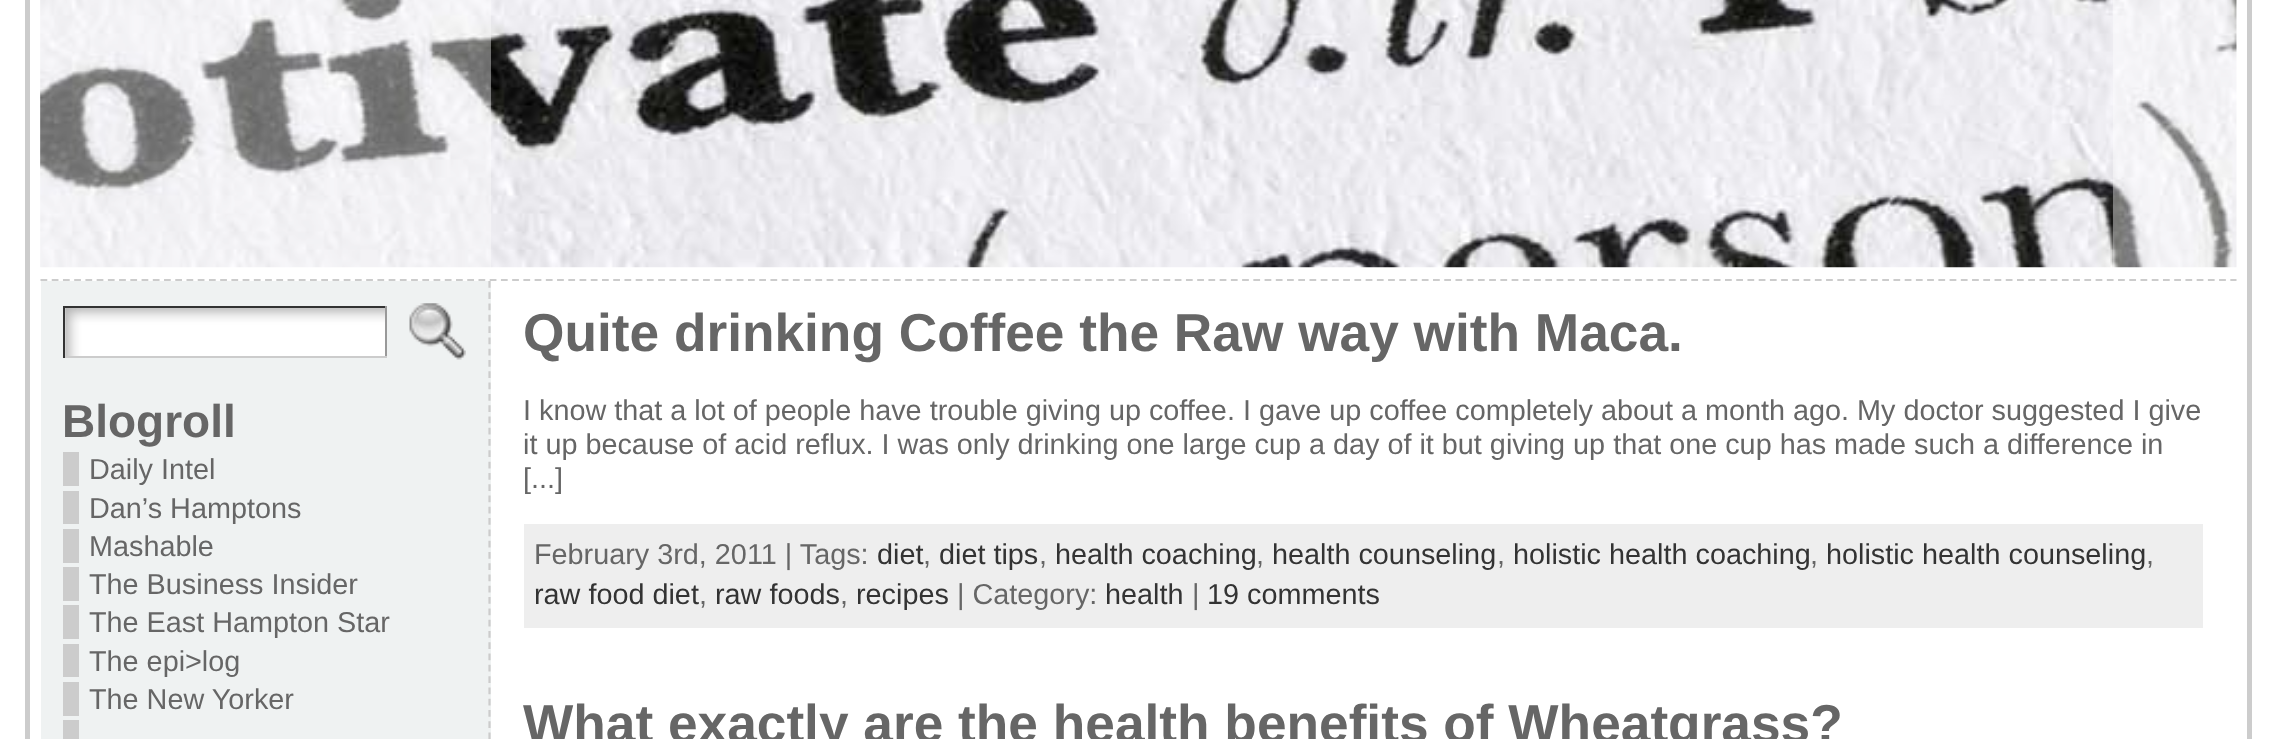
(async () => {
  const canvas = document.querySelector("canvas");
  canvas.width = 2274;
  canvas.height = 739;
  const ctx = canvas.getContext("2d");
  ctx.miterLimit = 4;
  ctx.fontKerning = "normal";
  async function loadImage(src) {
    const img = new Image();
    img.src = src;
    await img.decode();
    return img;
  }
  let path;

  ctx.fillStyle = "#ffffff";
  ctx.fillRect(0, 0, 2274, 739);
  ctx.strokeStyle = "#cccccc";
  ctx.lineWidth = 5;
  ctx.strokeRect(27.5, -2.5, 2222, 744);
  ctx.drawImage(await loadImage("img/1.png"), 40, 0, 2197, 268);
  for (const [x, y, w, h, color] of [
    [41, 0, 450, 268, "rgba(255, 255, 255, 0.4)"],
    [2113, 0, 124, 268, "rgba(255, 255, 255, 0.4)"],
    [41, 281, 450, 458, "#eff2f2"],
  ]) {
    ctx.fillStyle = color;
    ctx.fillRect(x, y, w, h);
  }
  path = new Path2D("M489.5 281V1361");
  ctx.lineWidth = 2.2;
  ctx.setLineDash([6.75, 4.54]);
  ctx.stroke(path);
  path = new Path2D("M40.5 280H2236.5");
  ctx.setLineDash([6.75, 4.48]);
  ctx.stroke(path);
  ctx.drawImage(await loadImage("img/2.png"), 65, 308, 320, 48);
  for (const [x, y, w, h, color] of [
    [63, 306, 324, 2, "#333333"],
    [385, 306, 2, 52, "#999999"],
    [63, 356, 324, 2, "#cccccc"],
    [63, 306, 2, 52, "#333333"],
  ]) {
    ctx.fillStyle = color;
    ctx.fillRect(x, y, w, h);
  }
  ctx.drawImage(await loadImage("img/3.png"), 409, 303, 57, 57);
  for (const [x, y, w, h, color] of [
    [63, 452, 16, 34, "#cccccc"],
    [63, 491, 16, 33, "#cccccc"],
    [63, 529, 16, 34, "#cccccc"],
    [63, 567, 16, 34, "#cccccc"],
    [63, 605, 16, 34, "#cccccc"],
    [63, 644, 16, 33, "#cccccc"],
    [63, 682, 16, 34, "#cccccc"],
    [63, 720, 16, 19, "#cccccc"],
    [524, 524, 1679, 104, "#eeeeee"],
  ]) {
    ctx.fillStyle = color;
    ctx.fillRect(x, y, w, h);
  }
  ctx.font = "bold 46px Liberation Sans";
  ctx.fillStyle = "#666666";
  ctx.fillText("Blogroll", 62, 437);
  ctx.font = "28.8px Liberation Sans";
  for (const [text, x, y] of [
    ["Daily Intel", 89, 479],
    ["Dan’s Hamptons", 89, 518],
    ["Mashable", 89, 556],
    ["The Business Insider", 89, 594],
    ["The East Hampton Star", 89, 632],
    ["The epi>log", 89, 671],
    ["The New Yorker", 89, 709],
  ]) {
    ctx.fillText(text, x, y);
  }
  ctx.font = "bold 53.25px Liberation Sans";
  ctx.fillText("Quite drinking Coffee the Raw way with Maca.", 523, 351);
  ctx.font = "28.8px Liberation Sans";
  for (const [text, x, y] of [
    ["I know that a lot of people have trouble giving up coffee. I gave up coffee completely about a month ago. My doctor suggested I give", 523, 420],
    ["it up because of acid reflux. I was only drinking one large cup a day of it but giving up that one cup has made such a difference in", 523, 454],
    ["[...]", 523, 488],
    ["February 3rd, 2011 | Tags:", 534, 564],
  ]) {
    ctx.fillText(text, x, y);
  }
  ctx.fillStyle = "#333333";
  ctx.fillText("diet", 877, 564);
  ctx.fillStyle = "#666666";
  ctx.fillText(",", 923, 564);
  ctx.fillStyle = "#333333";
  ctx.fillText("diet tips", 939, 564);
  ctx.fillStyle = "#666666";
  ctx.fillText(",", 1039, 564);
  ctx.fillStyle = "#333333";
  ctx.fillText("health coaching", 1055, 564);
  ctx.fillStyle = "#666666";
  ctx.fillText(",", 1256, 564);
  ctx.fillStyle = "#333333";
  ctx.fillText("health counseling", 1272, 564);
  ctx.fillStyle = "#666666";
  ctx.fillText(",", 1497, 564);
  ctx.fillStyle = "#333333";
  ctx.fillText("holistic health coaching", 1513, 564);
  ctx.fillStyle = "#666666";
  ctx.fillText(",", 1810, 564);
  ctx.fillStyle = "#333333";
  ctx.fillText("holistic health counseling", 1826, 564);
  ctx.fillStyle = "#666666";
  ctx.fillText(",", 2146, 564);
  ctx.fillStyle = "#333333";
  ctx.fillText("raw food diet", 534, 604);
  ctx.fillStyle = "#666666";
  ctx.fillText(",", 699, 604);
  ctx.fillStyle = "#333333";
  ctx.fillText("raw foods", 715, 604);
  ctx.fillStyle = "#666666";
  ctx.fillText(",", 840, 604);
  ctx.fillStyle = "#333333";
  ctx.fillText("recipes", 856, 604);
  ctx.fillStyle = "#666666";
  ctx.fillText("| Category:", 957, 604);
  ctx.fillStyle = "#333333";
  ctx.fillText("health", 1105, 604);
  ctx.fillStyle = "#666666";
  ctx.fillText("|", 1192, 604);
  ctx.fillStyle = "#333333";
  ctx.fillText("19 comments", 1207, 604);
  ctx.font = "bold 53.25px Liberation Sans";
  ctx.fillStyle = "#666666";
  ctx.fillText("What exactly are the health benefits of Wheatgrass?", 523, 742);
})();
